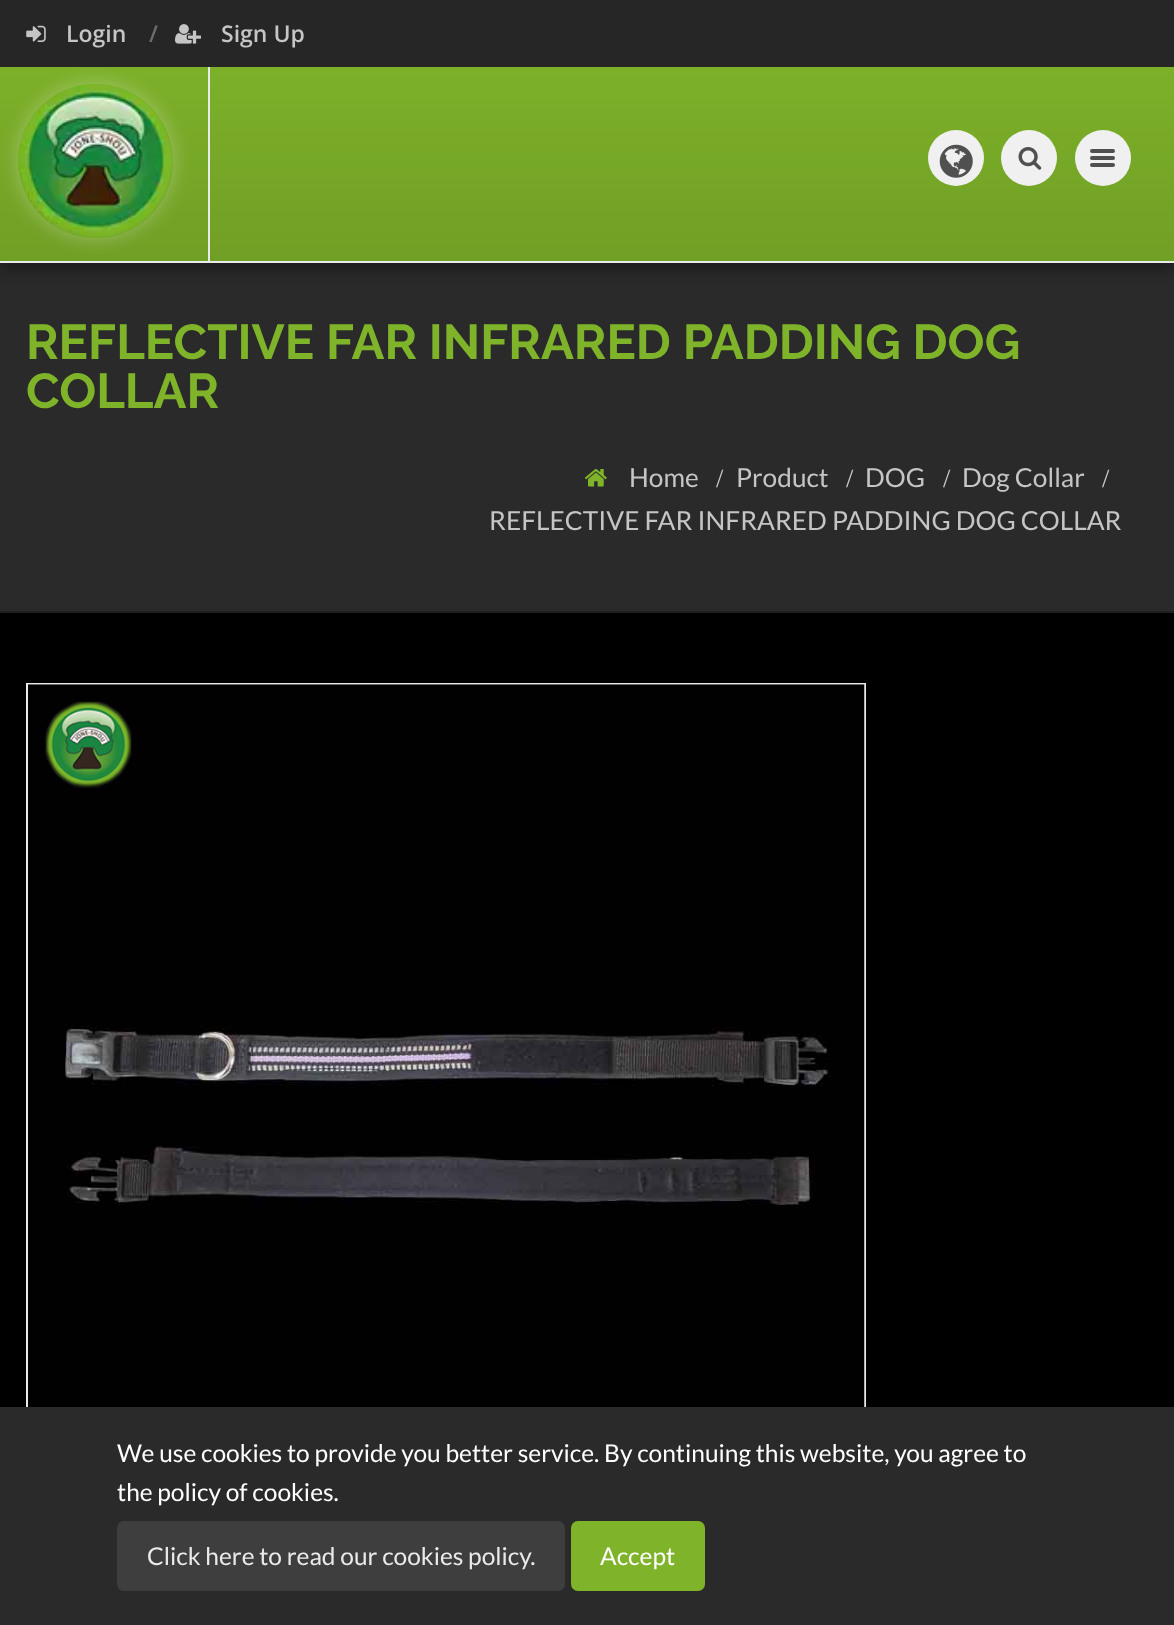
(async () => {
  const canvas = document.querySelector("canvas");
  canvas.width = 1174;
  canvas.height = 1625;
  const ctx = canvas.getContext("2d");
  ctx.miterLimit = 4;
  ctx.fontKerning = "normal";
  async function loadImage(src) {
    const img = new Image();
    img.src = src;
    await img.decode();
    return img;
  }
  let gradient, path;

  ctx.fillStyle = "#000000";
  ctx.fillRect(0, 0, 1174, 1625);
  ctx.fillStyle = "#2a2a2a";
  ctx.fillRect(0, 263, 1174, 348);
  ctx.fillStyle = "rgba(0, 0, 0, 0.32)";
  ctx.filter = "blur(7px)";
  ctx.beginPath();
  ctx.rect(0, 7, 1174, 263);
  ctx.fill();
  ctx.filter = "none";
  gradient = ctx.createLinearGradient(587, 0, 587, 261);
  gradient.addColorStop(0.1, "#7fb42a");
  gradient.addColorStop(1, "#709f25");
  ctx.fillStyle = gradient;
  ctx.fillRect(0, 67, 1174, 194);
  ctx.fillStyle = "#eaeaea";
  ctx.fillRect(0, 261, 1174, 2);
  ctx.fillStyle = "#262626";
  ctx.fillRect(0, 0, 1174, 67);
  ctx.drawImage(await loadImage("img/1.png"), 26, 25, 20, 17);
  ctx.drawImage(await loadImage("img/2.png"), 175, 24, 26, 20);
  ctx.fillStyle = "#eaeaea";
  ctx.fillRect(208, 67, 2, 194);
  ctx.save();
  path = new Path2D("M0 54H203V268H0ZM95 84H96C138.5 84 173 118.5 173 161C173 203.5 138.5 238 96 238H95C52.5 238 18 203.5 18 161C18 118.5 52.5 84 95 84Z");
  ctx.clip(path, "evenodd");
  ctx.fillStyle = "rgba(255, 255, 255, 0.3)";
  ctx.filter = "blur(9.5px)";
  ctx.beginPath();
  ctx.roundRect(18, 84, 155, 154, 77);
  ctx.fill();
  ctx.filter = "none";
  ctx.restore();
  ctx.drawImage(await loadImage("img/3.png"), 18, 84, 155, 154);
  ctx.fillStyle = "#f0f0f0";
  ctx.beginPath();
  ctx.arc(956, 158, 28, 0, Math.PI * 2);
  ctx.fill();
  ctx.drawImage(await loadImage("img/4.png"), 939, 144, 34, 34);
  ctx.beginPath();
  ctx.arc(1029, 158, 28, 0, Math.PI * 2);
  ctx.fill();
  ctx.drawImage(await loadImage("img/5.png"), 1018, 147, 24, 23);
  ctx.beginPath();
  ctx.arc(1103, 158, 28, 0, Math.PI * 2);
  ctx.fill();
  ctx.fillStyle = "#505050";
  ctx.beginPath();
  ctx.roundRect(1090, 156, 25, 4, 2);
  ctx.fill();
  ctx.beginPath();
  ctx.roundRect(1090, 149, 25, 4, 2);
  ctx.fill();
  ctx.beginPath();
  ctx.roundRect(1090, 163, 25, 4, 2);
  ctx.fill();
  ctx.fillStyle = "#1e1e1e";
  ctx.fillRect(0, 611, 1174, 2);
  ctx.drawImage(await loadImage("img/6.png"), 584, 469, 23, 18);
  ctx.strokeStyle = "#eaeaea";
  ctx.lineWidth = 2;
  ctx.strokeRect(27, 684, 838, 838);
  ctx.drawImage(await loadImage("img/7.png"), 28, 684, 837, 723);
  ctx.drawImage(await loadImage("img/8.png"), 45, 701, 87, 87);
  ctx.fillStyle = "#2a2a2a";
  ctx.fillRect(0, 1407, 1174, 218);
  ctx.fillStyle = "#3e3e3e";
  ctx.beginPath();
  ctx.roundRect(118, 1522, 446, 68, 6);
  ctx.fill();
  ctx.strokeStyle = "#3e3e3e";
  ctx.stroke();
  ctx.fillStyle = "#7fb42a";
  ctx.beginPath();
  ctx.roundRect(572, 1522, 132, 68, 6);
  ctx.fill();
  ctx.strokeStyle = "#7fb42a";
  ctx.stroke();
  ctx.font = "600 23px Open Sans";
  ctx.fillStyle = "#c5c5c5";
  ctx.fillText("Login", 66, 42);
  ctx.fillStyle = "#6e6e6e";
  ctx.fillText("/", 149, 42);
  ctx.fillStyle = "#c5c5c5";
  ctx.fillText("Sign Up", 221, 42);
  ctx.font = "100 49px Raleway";
  ctx.fillStyle = "#7fb42a";
  ctx.fillText("REFLECTIVE FAR INFRARED PADDING DOG", 26, 359);
  ctx.fillText("COLLAR", 26, 408);
  ctx.font = "26.25px Lato";
  ctx.fillStyle = "#c5c5c5";
  ctx.fillText("Home", 629, 487);
  ctx.font = "26.25px Liberation Serif";
  ctx.fillStyle = "#cccccc";
  ctx.fillText("/", 716, 487);
  ctx.font = "26.25px Lato";
  ctx.fillStyle = "#c5c5c5";
  ctx.fillText("Product", 736, 487);
  ctx.font = "26.25px Liberation Serif";
  ctx.fillStyle = "#cccccc";
  ctx.fillText("/", 846, 487);
  ctx.font = "26.25px Lato";
  ctx.fillStyle = "#c5c5c5";
  ctx.fillText("DOG", 865, 487);
  ctx.font = "26.25px Liberation Serif";
  ctx.fillStyle = "#cccccc";
  ctx.fillText("/", 943, 487);
  ctx.font = "26.25px Lato";
  ctx.fillStyle = "#c5c5c5";
  ctx.fillText("Dog Collar", 962, 487);
  ctx.font = "26.25px Liberation Serif";
  ctx.fillStyle = "#cccccc";
  ctx.fillText("/", 1102, 487);
  ctx.font = "26.25px Lato";
  ctx.fillStyle = "#c5c5c5";
  ctx.fillText("REFLECTIVE FAR INFRARED PADDING DOG COLLAR", 489, 530);
  ctx.font = "24.5px Lato";
  ctx.fillStyle = "#ffffff";
  ctx.fillText("We use cookies to provide you better service. By continuing this website, you agree to", 117, 1462);
  ctx.fillText("the policy of cookies.", 117, 1501);
  ctx.fillStyle = "#eaeaea";
  ctx.fillText("Click here to read our cookies policy.", 147, 1565);
  ctx.fillStyle = "#ffffff";
  ctx.fillText("Accept", 600, 1565);
})();
